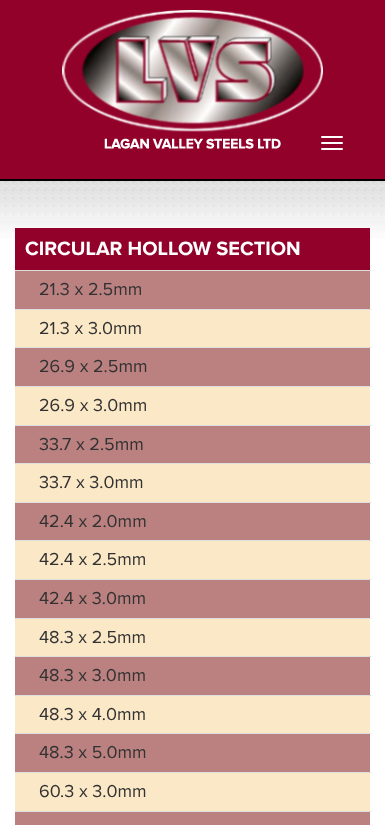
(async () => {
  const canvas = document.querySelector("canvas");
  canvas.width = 385;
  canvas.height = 825;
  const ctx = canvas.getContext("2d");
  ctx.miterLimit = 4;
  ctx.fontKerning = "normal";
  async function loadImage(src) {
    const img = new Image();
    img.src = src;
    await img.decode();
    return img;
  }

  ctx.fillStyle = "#ffffff";
  ctx.fillRect(0, 0, 385, 825);
  ctx.fillStyle = "#92012a";
  ctx.fillRect(0, 0, 385, 179);
  ctx.fillStyle = "#000000";
  ctx.fillRect(0, 179, 385, 2);
  ctx.drawImage(await loadImage("img/1.png"), 62, 10, 261, 139);
  ctx.fillStyle = "#ffffff";
  ctx.beginPath();
  ctx.roundRect(321, 136, 22, 2, 1);
  ctx.fill();
  ctx.beginPath();
  ctx.roundRect(321, 142, 22, 2, 1);
  ctx.fill();
  ctx.beginPath();
  ctx.roundRect(321, 148, 22, 2, 1);
  ctx.fill();
  ctx.drawImage(await loadImage("img/2.png"), 0, 181, 385, 58);
  for (const [x, y, w, h, color] of [
    [15, 228, 355, 42, "#92012a"],
    [15, 271, 355, 38, "#bb8180"],
    [15, 270, 356, 1, "#dddddd"],
    [15, 310, 355, 37, "#fbe8c7"],
    [15, 309, 356, 1, "#dddddd"],
    [15, 348, 355, 38, "#bb8180"],
    [15, 347, 356, 1, "#dddddd"],
    [15, 387, 355, 38, "#fbe8c7"],
    [15, 386, 356, 1, "#dddddd"],
    [15, 426, 355, 37, "#bb8180"],
    [15, 425, 356, 1, "#dddddd"],
    [15, 464, 355, 38, "#fbe8c7"],
    [15, 463, 356, 1, "#dddddd"],
    [15, 503, 355, 37, "#bb8180"],
    [15, 502, 356, 1, "#dddddd"],
    [15, 541, 355, 38, "#fbe8c7"],
    [15, 540, 356, 1, "#dddddd"],
    [15, 580, 355, 38, "#bb8180"],
    [15, 579, 356, 1, "#dddddd"],
    [15, 619, 355, 37, "#fbe8c7"],
    [15, 618, 356, 1, "#dddddd"],
    [15, 657, 355, 38, "#bb8180"],
    [15, 656, 356, 1, "#dddddd"],
    [15, 696, 355, 37, "#fbe8c7"],
    [15, 695, 356, 1, "#dddddd"],
    [15, 734, 355, 38, "#bb8180"],
    [15, 733, 356, 1, "#dddddd"],
    [15, 773, 355, 38, "#fbe8c7"],
    [15, 772, 356, 1, "#dddddd"],
    [15, 812, 355, 13, "#bb8180"],
    [15, 811, 356, 1, "#dddddd"],
  ]) {
    ctx.fillStyle = color;
    ctx.fillRect(x, y, w, h);
  }
  ctx.font = "bold 20px Proxima Nova";
  ctx.fillStyle = "#ffffff";
  ctx.fillText("CIRCULAR HOLLOW SECTION", 25, 255);
  ctx.font = "18px Proxima Nova";
  ctx.fillStyle = "#323232";
  for (const [text, x, y] of [
    ["21.3 x 2.5mm", 39, 295],
    ["21.3 x 3.0mm", 39, 334],
    ["26.9 x 2.5mm", 39, 372],
    ["26.9 x 3.0mm", 39, 411],
    ["33.7 x 2.5mm", 39, 450],
    ["33.7 x 3.0mm", 39, 488],
    ["42.4 x 2.0mm", 39, 527],
    ["42.4 x 2.5mm", 39, 565],
    ["42.4 x 3.0mm", 39, 604],
    ["48.3 x 2.5mm", 39, 643],
    ["48.3 x 3.0mm", 39, 681],
    ["48.3 x 4.0mm", 39, 720],
    ["48.3 x 5.0mm", 39, 758],
    ["60.3 x 3.0mm", 39, 797],
  ]) {
    ctx.fillText(text, x, y);
  }
})();
